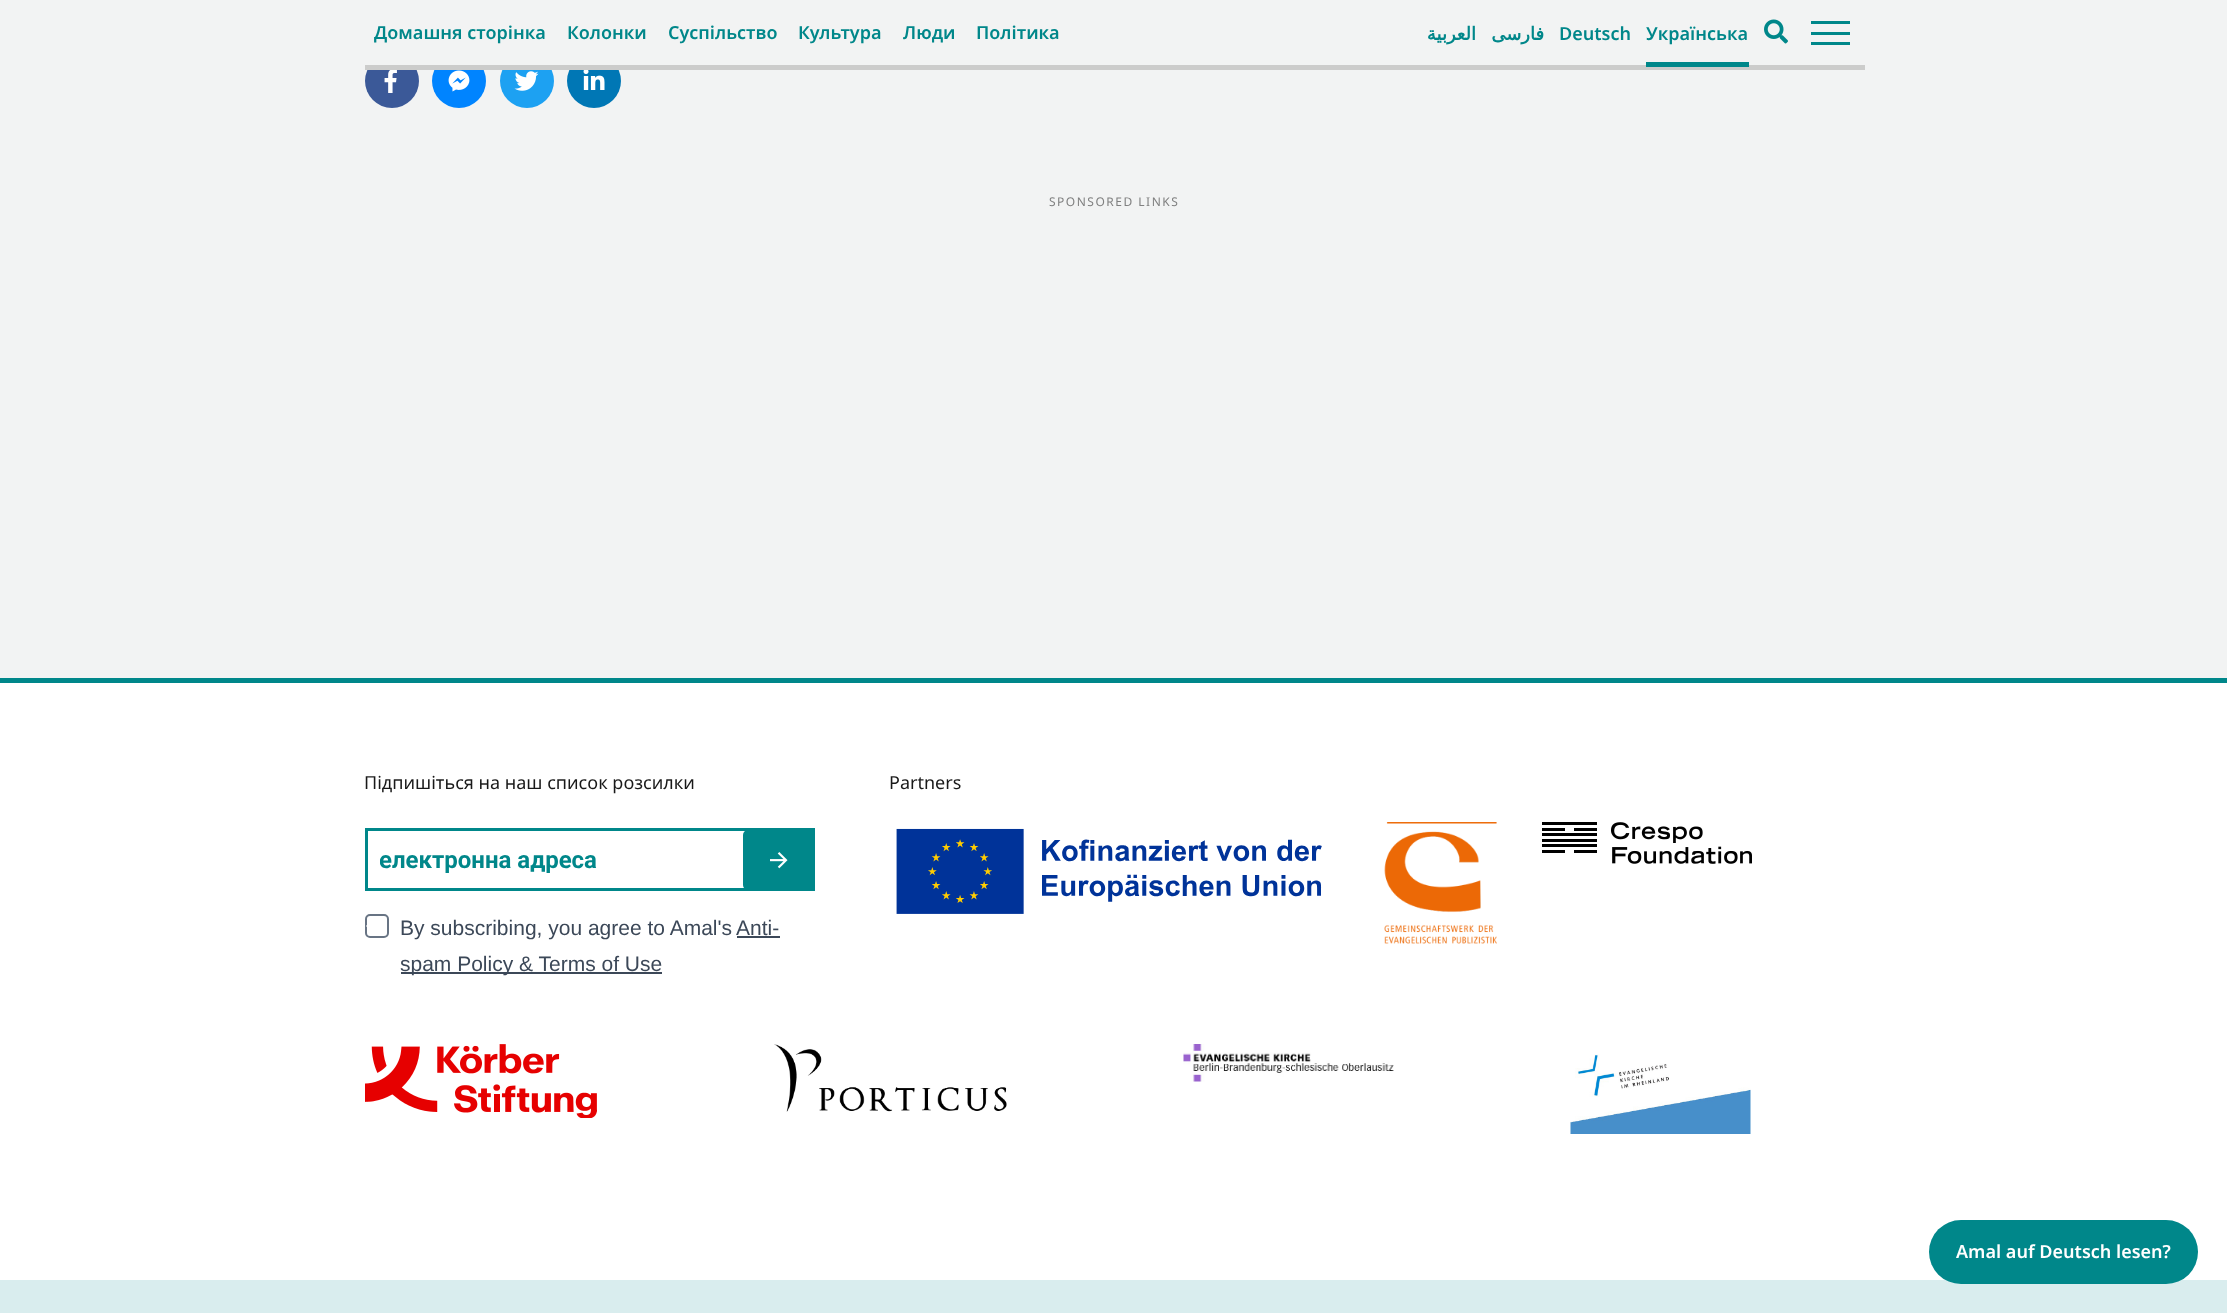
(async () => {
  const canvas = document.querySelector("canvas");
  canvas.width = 2227;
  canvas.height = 1313;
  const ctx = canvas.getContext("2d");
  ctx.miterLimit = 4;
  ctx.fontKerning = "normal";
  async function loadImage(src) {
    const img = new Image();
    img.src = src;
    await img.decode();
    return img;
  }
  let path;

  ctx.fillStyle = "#f2f3f3";
  ctx.fillRect(0, 0, 2227, 1313);
  ctx.fillStyle = "#3b5998";
  ctx.beginPath();
  ctx.arc(392, 81, 27, 0, Math.PI * 2);
  ctx.fill();
  ctx.fillStyle = "#0084ff";
  ctx.beginPath();
  ctx.arc(459, 81, 27, 0, Math.PI * 2);
  ctx.fill();
  ctx.fillStyle = "#1da1f2";
  ctx.beginPath();
  ctx.arc(527, 81, 27, 0, Math.PI * 2);
  ctx.fill();
  ctx.fillStyle = "#0077b5";
  ctx.beginPath();
  ctx.arc(594, 81, 27, 0, Math.PI * 2);
  ctx.fill();
  for (const [x, y, w, h, color] of [
    [367, 54, 252, 15, "#f2f3f3"],
    [365, 65, 1500, 5, "#cccccb"],
    [1646, 62, 103, 5, "#00878a"],
  ]) {
    ctx.fillStyle = color;
    ctx.fillRect(x, y, w, h);
  }
  ctx.drawImage(await loadImage("img/1.png"), 1764, 19, 24, 25);
  for (const [x, y, w, h, color] of [
    [1811, 32, 39, 3, "#00878a"],
    [1811, 21, 39, 3, "#00878a"],
    [1811, 42, 39, 3, "#00878a"],
  ]) {
    ctx.fillStyle = color;
    ctx.fillRect(x, y, w, h);
  }
  ctx.drawImage(await loadImage("img/2.png"), 384, 70, 13, 23);
  ctx.drawImage(await loadImage("img/3.png"), 448, 70, 22, 22);
  ctx.drawImage(await loadImage("img/4.png"), 514, 71, 25, 20);
  ctx.drawImage(await loadImage("img/5.png"), 583, 70, 22, 20);
  ctx.fillStyle = "#ffffff";
  ctx.fillRect(0, 683, 2227, 597);
  ctx.fillStyle = "#00878a";
  ctx.fillRect(0, 678, 2227, 5);
  ctx.strokeStyle = "#00878a";
  ctx.lineWidth = 3;
  ctx.strokeRect(366.5, 829.5, 447, 60);
  ctx.beginPath();
  ctx.roundRect(743, 830, 72, 60, 5);
  ctx.fill();
  ctx.drawImage(await loadImage("img/6.png"), 770, 852, 18, 17);
  ctx.beginPath();
  ctx.roundRect(366, 915, 22, 22, 4);
  ctx.strokeStyle = "#687484";
  ctx.lineWidth = 2;
  ctx.stroke();
  ctx.fillStyle = "#ffffff";
  path = new Path2D("M368 924L375.5 931.5L373.5 933.5L366 926Z");
  ctx.fill(path);
  ctx.fillStyle = "#3c4858";
  ctx.fillRect(737, 936, 43, 2);
  ctx.fillRect(401, 972, 261, 2);
  ctx.drawImage(await loadImage("img/7.png"), 896, 828, 426, 86);
  ctx.drawImage(await loadImage("img/8.png"), 1384, 822, 113, 122);
  ctx.drawImage(await loadImage("img/9.png"), 1542, 822, 210, 42);
  ctx.drawImage(await loadImage("img/10.png"), 365, 1044, 232, 74);
  ctx.drawImage(await loadImage("img/11.png"), 774, 1044, 233, 68);
  ctx.drawImage(await loadImage("img/12.png"), 1183, 1044, 211, 38);
  ctx.drawImage(await loadImage("img/13.png"), 1570, 1054, 181, 80);
  ctx.fillStyle = "#d9edee";
  ctx.fillRect(0, 1280, 2227, 33);
  ctx.fillStyle = "#00878a";
  ctx.beginPath();
  ctx.roundRect(1929, 1220, 269, 64, 32);
  ctx.fill();
  ctx.font = "600 18px Noto Sans";
  for (const [text, x, y] of [
    ["Домашня сторінка", 374, 39],
    ["Колонки", 567, 39],
    ["Суспільство", 668, 39],
    ["Культура", 798, 39],
    ["Люди", 903, 39],
    ["Політика", 976, 39],
  ]) {
    ctx.fillText(text, x, y);
  }
  ctx.direction = "rtl";
  ctx.font = "bold 18px DejaVu Sans";
  ctx.fillText("العربية", 1476, 40);
  ctx.fillText("فارسی", 1544, 40);
  ctx.direction = "ltr";
  ctx.font = "600 18px Noto Sans";
  ctx.fillText("Deutsch", 1559, 40);
  ctx.fillText("Українська", 1646, 40);
  ctx.letterSpacing = "1.5px";
  ctx.font = "12px Noto Sans";
  ctx.fillStyle = "#808080";
  ctx.fillText("SPONSORED LINKS", 1049, 206);
  ctx.letterSpacing = "0px";
  ctx.font = "18px Noto Sans";
  ctx.fillStyle = "#191919";
  ctx.fillText("Підпишіться на наш список розсилки", 364, 789);
  ctx.save();
  ctx.beginPath();
  ctx.rect(380, 846, 420, 29);
  ctx.clip();
  ctx.font = "bold 24px Roboto";
  ctx.fillStyle = "#00878a";
  ctx.fillText("електронна адреса", 379, 868);
  ctx.restore();
  ctx.font = "21px Liberation Sans";
  ctx.fillStyle = "#3c4858";
  for (const [text, x, y] of [
    ["By subscribing, you agree to Amal's", 400, 935],
    ["Anti-", 736, 935],
    ["spam Policy & Terms of Use", 400, 971],
  ]) {
    ctx.fillText(text, x, y);
  }
  ctx.font = "18px Noto Sans";
  ctx.fillStyle = "#191919";
  ctx.fillText("Partners", 889, 789);
  ctx.font = "600 18px Noto Sans";
  ctx.fillStyle = "#ffffff";
  ctx.fillText("Amal auf Deutsch lesen?", 1956, 1258);
})();
